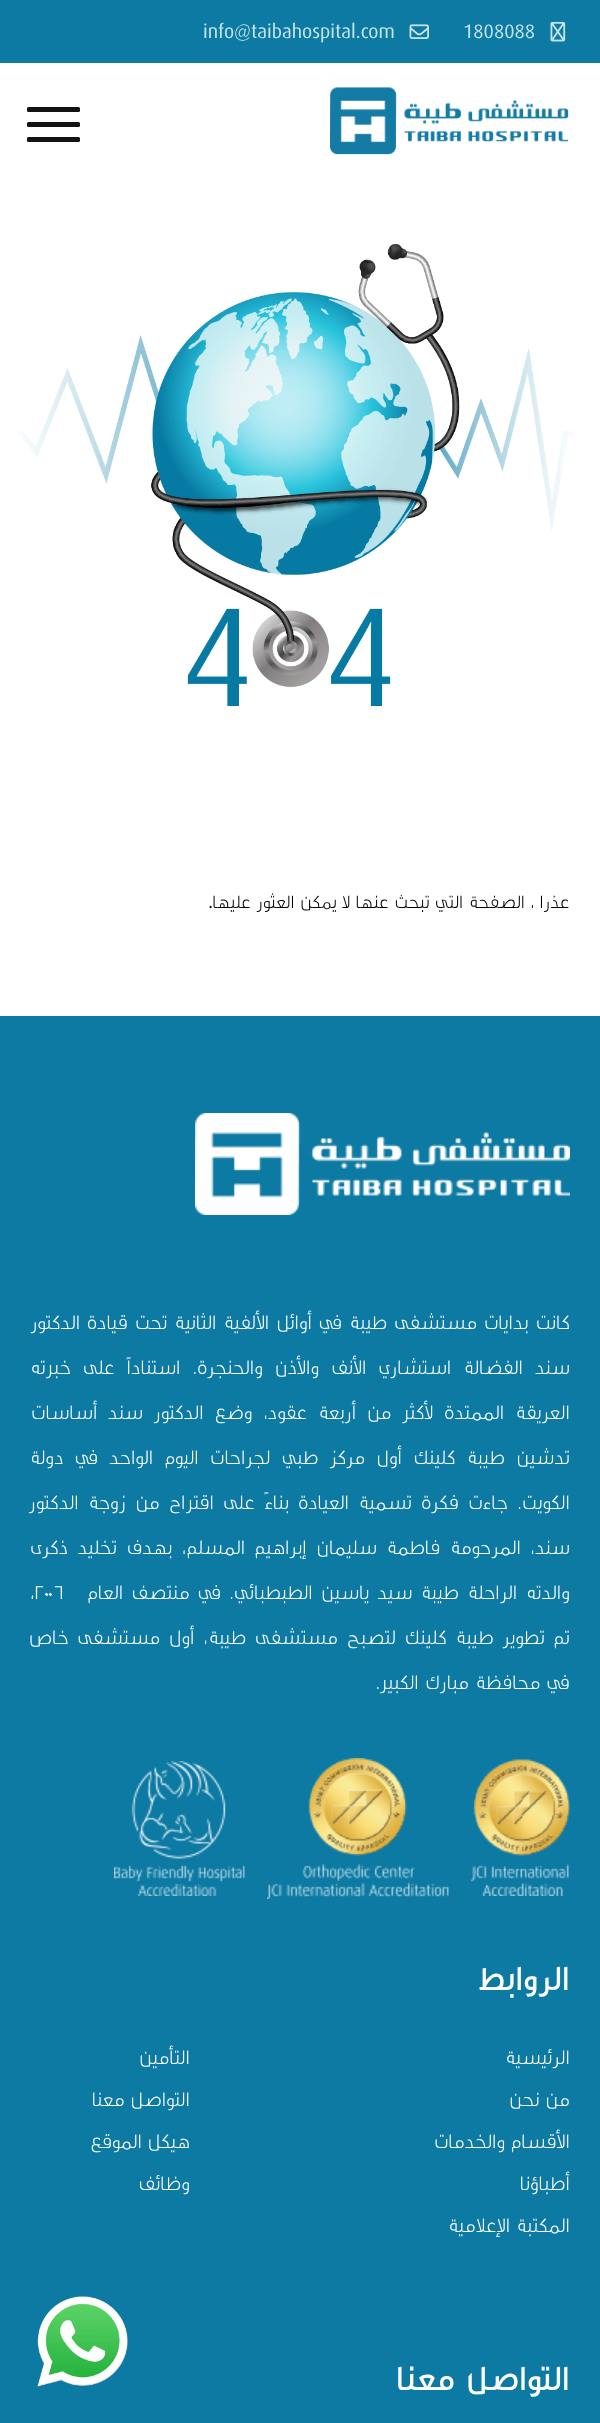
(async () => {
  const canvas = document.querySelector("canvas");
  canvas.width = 600;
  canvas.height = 2423;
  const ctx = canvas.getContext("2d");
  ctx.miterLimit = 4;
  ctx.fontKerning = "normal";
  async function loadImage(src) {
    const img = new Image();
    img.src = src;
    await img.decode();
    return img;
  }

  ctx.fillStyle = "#ffffff";
  ctx.fillRect(0, 0, 600, 2423);
  ctx.fillStyle = "#0d7aa3";
  ctx.fillRect(0, 0, 600, 63);
  ctx.drawImage(await loadImage("img/1.png"), 550, 21, 16, 21);
  ctx.drawImage(await loadImage("img/2.png"), 409, 24, 20, 15);
  ctx.drawImage(await loadImage("img/3.png"), 330, 87, 239, 68);
  ctx.fillStyle = "#131313";
  ctx.beginPath();
  ctx.roundRect(27, 122, 53, 5, 1.5);
  ctx.fill();
  ctx.beginPath();
  ctx.roundRect(27, 107, 53, 5, 1.5);
  ctx.fill();
  ctx.beginPath();
  ctx.roundRect(27, 137, 53, 5, 1.5);
  ctx.fill();
  ctx.drawImage(await loadImage("img/4.png"), 17, 244, 557, 462);
  ctx.fillStyle = "#0d7aa3";
  ctx.fillRect(0, 1016, 600, 1407);
  ctx.drawImage(await loadImage("img/5.png"), 195, 1113, 375, 102);
  ctx.drawImage(await loadImage("img/6.png"), 471, 1759, 99, 137);
  ctx.drawImage(await loadImage("img/7.png"), 267, 1758, 182, 141);
  ctx.drawImage(await loadImage("img/8.png"), 114, 1761, 131, 135);
  ctx.drawImage(await loadImage("img/9.png"), 37, 2296, 91, 91);
  ctx.font = "19.5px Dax";
  ctx.fillStyle = "#c4e4e7";
  ctx.fillText("1808088", 463, 38);
  ctx.fillText("info@taibahospital.com", 203, 38);
  ctx.wordSpacing = "2px";
  ctx.direction = "rtl";
  ctx.font = "19.25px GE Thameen";
  ctx.fillStyle = "#000000";
  ctx.fillText("عذرا ، الصفحة التي تبحث عنها لا يمكن العثور عليها", 570, 908);
  ctx.wordSpacing = "0px";
  ctx.font = "19.25px Dax";
  ctx.fillText(".", 213, 908);
  ctx.wordSpacing = "3.1px";
  ctx.font = "21px GE Thameen";
  ctx.fillStyle = "#ffffff";
  ctx.fillText("كانت بدايات مستشفى طيبة في أوائل الألفية الثانية تحت قيادة الدكتور", 570, 1329);
  ctx.wordSpacing = "8.25px";
  ctx.fillText("سند الفضالة استشاري الأنف والأذن والحنجرة. استناداً على خبرته", 570, 1374);
  ctx.wordSpacing = "7px";
  ctx.fillText("العريقة الممتدة لأكثر من أربعة عقود، وضع الدكتور سند أساسات", 570, 1419);
  ctx.wordSpacing = "7.5px";
  ctx.fillText("تدشين طيبة كلينك أول مركز طبي لجراحات اليوم الواحد في دولة", 570, 1464);
  ctx.wordSpacing = "5.5px";
  ctx.fillText("الكويت. جاءت فكرة تسمية العيادة بناءً على اقتراح من زوجة الدكتور", 570, 1509);
  ctx.wordSpacing = "5.75px";
  ctx.fillText("سند، المرحومة فاطمة سليمان إبراهيم المسلم، بهدف تخليد ذكرى", 570, 1554);
  ctx.wordSpacing = "4.5px";
  ctx.fillText("والدته الراحلة طيبة سيد ياسين الطبطبائي. في منتصف العام", 570, 1599);
  ctx.wordSpacing = "0px";
  ctx.direction = "ltr";
  ctx.fillText("،2006", 30, 1599);
  ctx.wordSpacing = "5px";
  ctx.direction = "rtl";
  ctx.fillText("تم تطوير طيبة كلينك لتصبح مستشفى طيبة، أول مستشفى خاص", 570, 1644);
  ctx.wordSpacing = "2.5px";
  ctx.fillText("في محافظة مبارك الكبير.", 570, 1689);
  ctx.wordSpacing = "0px";
  ctx.font = "600 36px GE Thameen";
  ctx.fillText("الروابط", 570, 1990);
  ctx.font = "21px GE Thameen";
  ctx.fillText("الرئيسية", 570, 2064);
  ctx.wordSpacing = "2px";
  ctx.fillText("من نحن", 570, 2106);
  ctx.fillText("الأقسام والخدمات", 570, 2148);
  ctx.wordSpacing = "0px";
  ctx.fillText("أطباؤنا", 570, 2190);
  ctx.wordSpacing = "2px";
  ctx.fillText("المكتبة الإعلامية", 570, 2232);
  ctx.wordSpacing = "0px";
  ctx.fillText("التأمين", 190, 2064);
  ctx.wordSpacing = "2px";
  ctx.fillText("التواصل معنا", 190, 2106);
  ctx.fillText("هيكل الموقع", 190, 2148);
  ctx.wordSpacing = "0px";
  ctx.fillText("وظائف", 190, 2190);
  ctx.wordSpacing = "4px";
  ctx.font = "600 36px GE Thameen";
  ctx.fillText("التواصل معنا", 570, 2390);
})();
